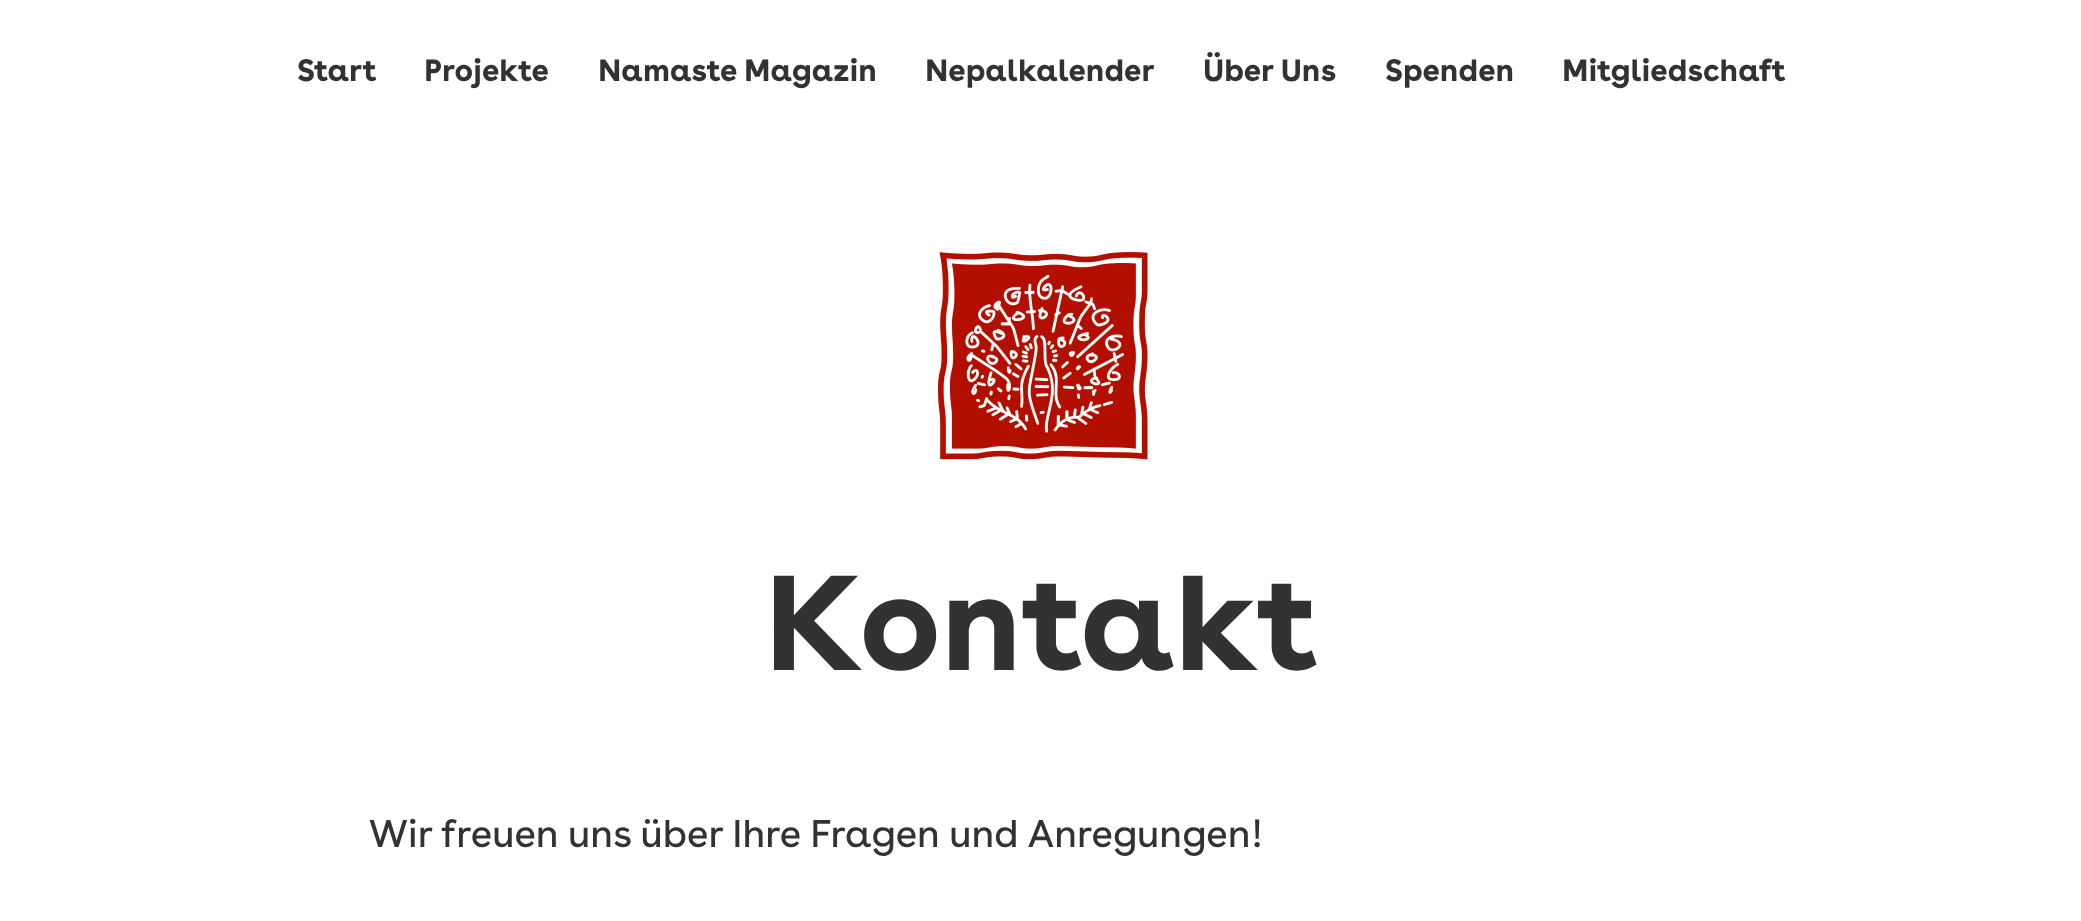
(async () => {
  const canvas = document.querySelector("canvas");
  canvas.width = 2081;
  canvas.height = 921;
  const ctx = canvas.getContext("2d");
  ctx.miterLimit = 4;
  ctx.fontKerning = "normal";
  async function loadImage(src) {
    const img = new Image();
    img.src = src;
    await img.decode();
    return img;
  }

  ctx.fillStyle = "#ffffff";
  ctx.fillRect(0, 0, 2081, 921);
  ctx.drawImage(await loadImage("img/1.png"), 938, 252, 210, 208);
  ctx.font = "bold 30.75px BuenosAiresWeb";
  ctx.fillStyle = "#333230";
  for (const [text, x, y] of [
    ["Start", 297, 81],
    ["Projekte", 424, 81],
    ["Namaste Magazin", 598, 81],
    ["Nepalkalender", 925, 81],
    ["Über Uns", 1203, 81],
    ["Spenden", 1385, 81],
    ["Mitgliedschaft", 1562, 81],
  ]) {
    ctx.fillText(text, x, y);
  }
  ctx.font = "bold 134.75px BuenosAiresWeb";
  ctx.fillText("Kontakt", 764, 670);
  ctx.font = "38.5px BuenosAiresWeb";
  ctx.fillText("Wir freuen uns über Ihre Fragen und Anregungen!", 369, 847);
})();
